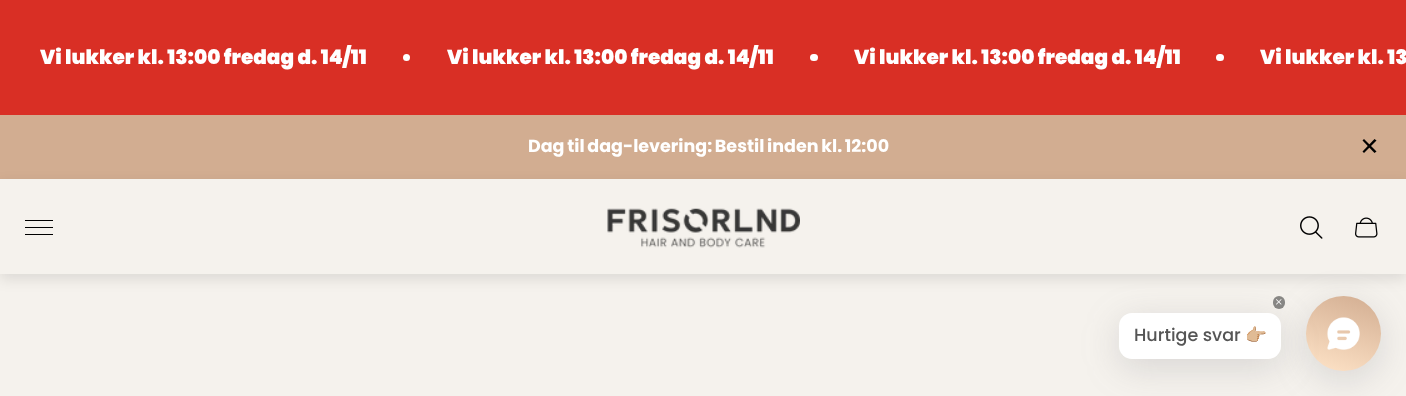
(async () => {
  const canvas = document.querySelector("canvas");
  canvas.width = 1406;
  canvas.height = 396;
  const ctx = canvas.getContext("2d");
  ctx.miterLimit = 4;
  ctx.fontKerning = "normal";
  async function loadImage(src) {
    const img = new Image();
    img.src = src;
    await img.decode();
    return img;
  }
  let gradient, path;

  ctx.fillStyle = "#f5f2ed";
  ctx.fillRect(0, 0, 1406, 396);
  ctx.fillStyle = "#d92f25";
  ctx.fillRect(0, 0, 1406, 115);
  ctx.fillStyle = "#ffffff";
  ctx.beginPath();
  ctx.arc(406.5, 57.5, 3.5, 0, Math.PI * 2);
  ctx.fill();
  ctx.beginPath();
  ctx.roundRect(810, 54, 8, 7, 3.5);
  ctx.fill();
  ctx.beginPath();
  ctx.roundRect(1216, 54, 8, 7, 3.5);
  ctx.fill();
  ctx.fillStyle = "#d2ad91";
  ctx.fillRect(0, 115, 1406, 64);
  ctx.fillStyle = "#000000";
  path = new Path2D("M1374.5 139L1376.5 140.5L1364 153L1362.5 151.5Z");
  ctx.fill(path);
  path = new Path2D("M1362.5 140.5L1364 139L1376.5 151.5L1374.5 153Z");
  ctx.fill(path);
  ctx.fillStyle = "rgba(0, 0, 0, 0.1)";
  ctx.filter = "blur(7px)";
  ctx.beginPath();
  ctx.rect(0, 184, 1406, 95);
  ctx.fill();
  ctx.filter = "none";
  for (const [x, y, w, h, color] of [
    [0, 179, 1406, 95, "#f5f2ed"],
    [25, 220, 28, 1, "#000000"],
    [25, 227, 28, 1, "#000000"],
    [25, 234, 28, 1, "#000000"],
  ]) {
    ctx.fillStyle = color;
    ctx.fillRect(x, y, w, h);
  }
  ctx.drawImage(await loadImage("img/1.png"), 607, 208, 193, 40);
  ctx.drawImage(await loadImage("img/2.png"), 1300, 216, 23, 23);
  ctx.drawImage(await loadImage("img/3.png"), 1355, 217, 23, 21);
  ctx.fillStyle = "rgba(100, 100, 111, 0.2)";
  ctx.filter = "blur(18px)";
  ctx.beginPath();
  ctx.roundRect(1306, 305, 75, 75, 37.5);
  ctx.fill();
  ctx.filter = "none";
  gradient = ctx.createLinearGradient(1359, 289, 1328, 379);
  gradient.addColorStop(0, "#d2ad91");
  gradient.addColorStop(1, "#ffe4c8");
  ctx.fillStyle = gradient;
  ctx.beginPath();
  ctx.arc(1343.5, 333.5, 37.5, 0, Math.PI * 2);
  ctx.fill();
  ctx.drawImage(await loadImage("img/5.png"), 1327, 317, 33, 33);
  ctx.fillStyle = "rgba(100, 100, 111, 0.2)";
  ctx.filter = "blur(18px)";
  ctx.beginPath();
  ctx.roundRect(1119, 321, 162, 47, 13);
  ctx.fill();
  ctx.filter = "none";
  ctx.fillStyle = "#ffffff";
  ctx.beginPath();
  ctx.roundRect(1119, 313, 162, 46, 13);
  ctx.fill();
  ctx.fillStyle = "rgba(48, 48, 48, 0.55)";
  ctx.beginPath();
  ctx.roundRect(1273, 296, 12, 13, 6);
  ctx.fill();
  ctx.drawImage(await loadImage("img/4.png"), 1276, 299, 6, 6);
  ctx.font = "900 20px Poppins";
  ctx.fillStyle = "#ffffff";
  for (const [text, x, y] of [
    ["Vi lukker kl. 13:00 fredag d. 14/11", 40, 64],
    ["Vi lukker kl. 13:00 fredag d. 14/11", 447, 64],
    ["Vi lukker kl. 13:00 fredag d. 14/11", 854, 64],
    ["Vi lukker kl. 13", 1260, 64],
  ]) {
    ctx.fillText(text, x, y);
  }
  ctx.wordSpacing = "-1px";
  ctx.font = "bold 17.5px Poppins";
  ctx.fillText("Dag til dag-levering: Bestil inden kl. 12:00", 528, 152);
  ctx.wordSpacing = "0px";
  ctx.font = "500 17.5px Poppins";
  ctx.fillStyle = "#555555";
  ctx.fillText("Hurtige svar", 1134, 341);
  ctx.font = "17.5px Noto Color Emoji";
  ctx.fillText("👉🏼", 1245, 341);
})();
